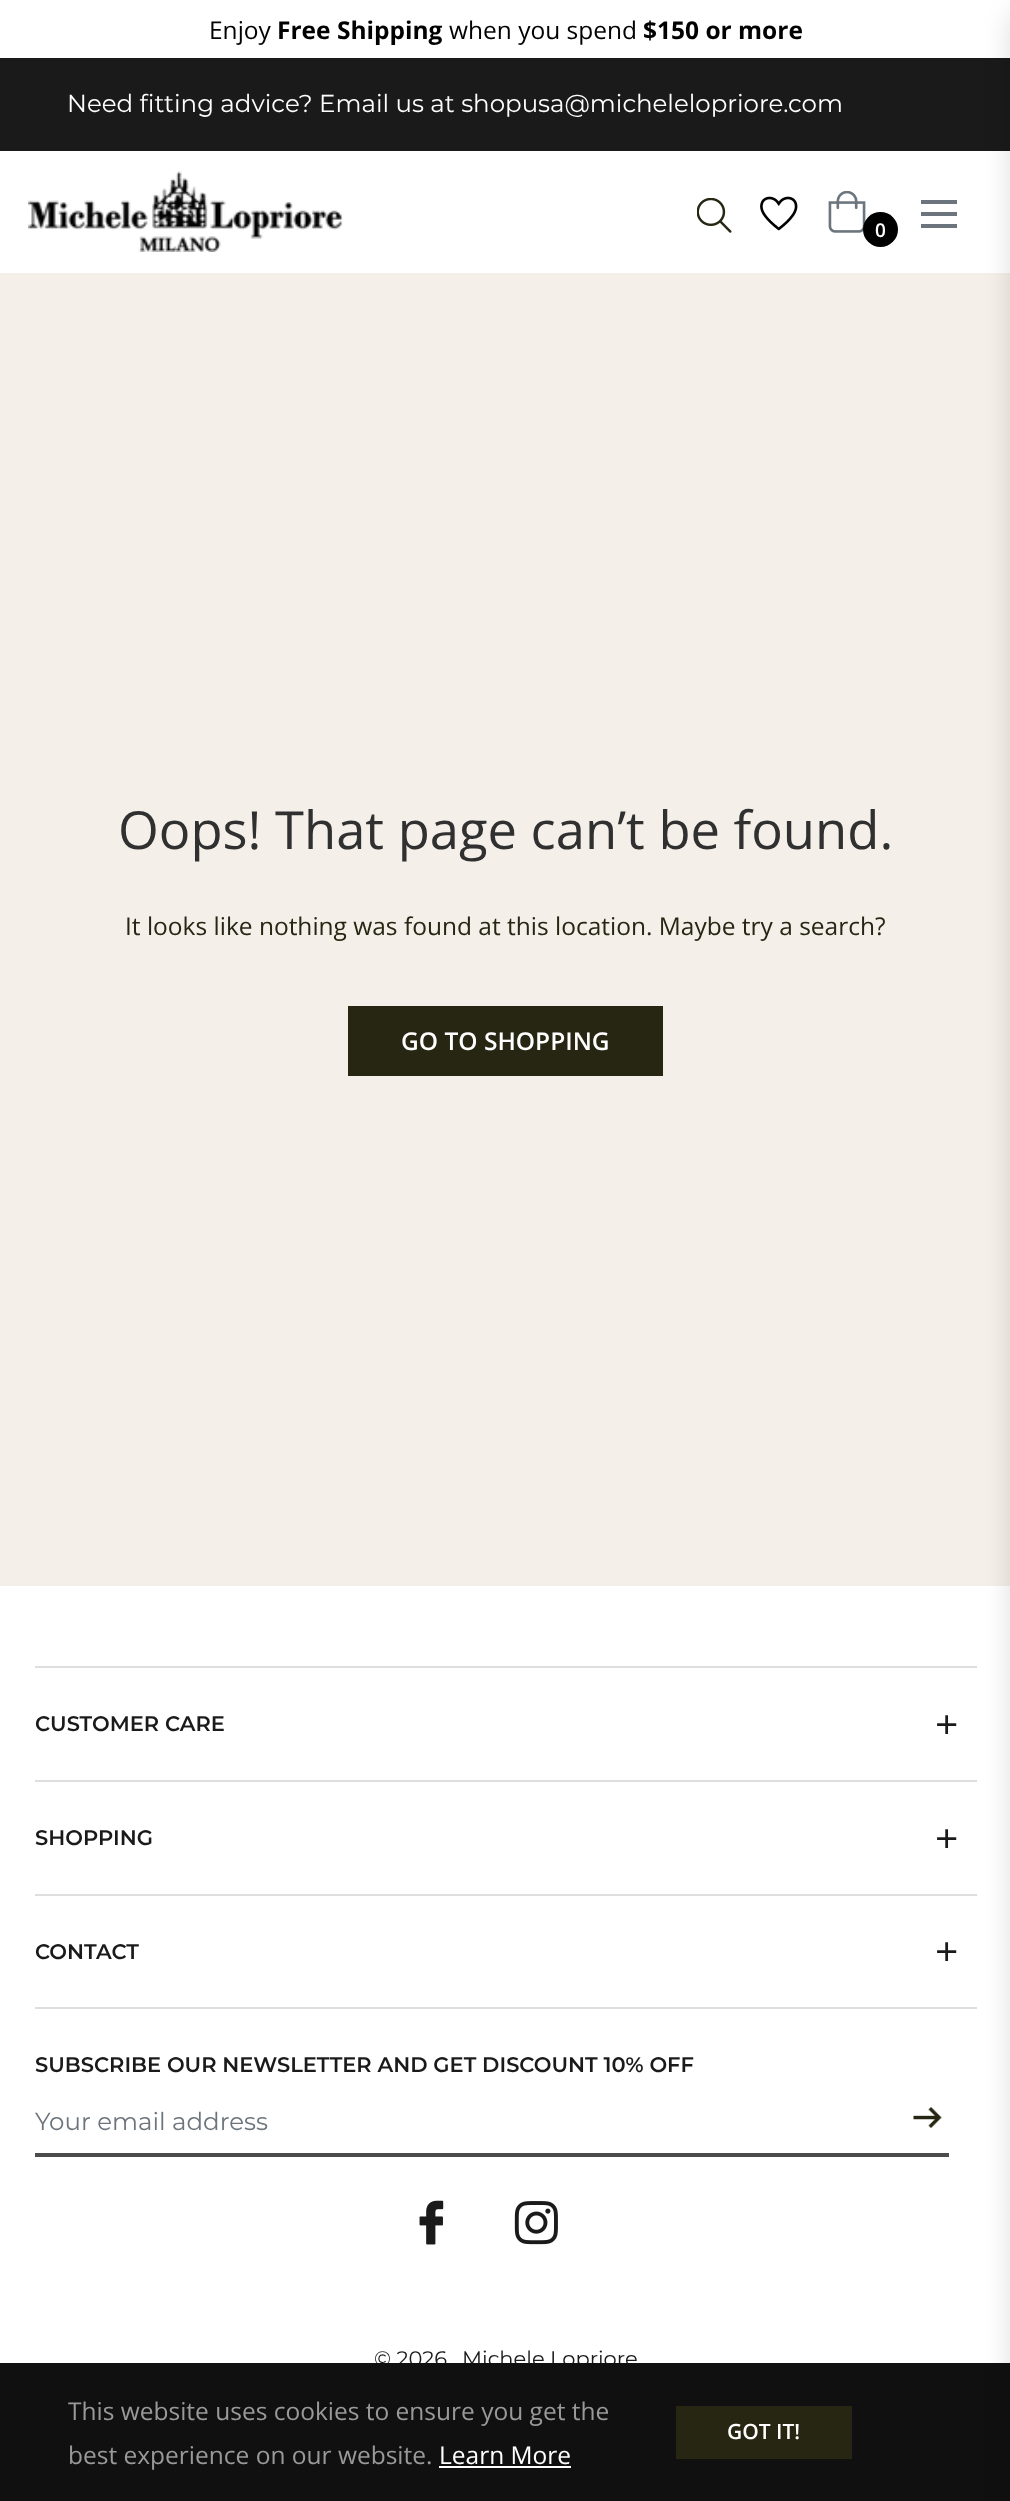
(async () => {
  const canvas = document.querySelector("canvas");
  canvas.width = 1010;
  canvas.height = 2501;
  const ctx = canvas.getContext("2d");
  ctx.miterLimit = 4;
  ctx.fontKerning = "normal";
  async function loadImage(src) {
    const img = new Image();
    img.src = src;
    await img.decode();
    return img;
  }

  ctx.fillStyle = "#ffffff";
  ctx.fillRect(0, 0, 1010, 2501);
  ctx.fillStyle = "#1a1a1a";
  ctx.fillRect(0, 58, 1010, 93);
  ctx.drawImage(await loadImage("img/1.png"), 28, 171, 315, 81);
  for (const [x, y, w, h, color] of [
    [921, 200, 36, 4, "#6c757d"],
    [921, 212, 36, 4, "#6c757d"],
    [921, 224, 36, 4, "#6c757d"],
  ]) {
    ctx.fillStyle = color;
    ctx.fillRect(x, y, w, h);
  }
  ctx.drawImage(await loadImage("img/2.png"), 697, 198, 35, 35);
  ctx.drawImage(await loadImage("img/3.png"), 760, 196, 38, 35);
  ctx.drawImage(await loadImage("img/4.png"), 828, 191, 38, 42);
  ctx.fillStyle = "#000000";
  ctx.beginPath();
  ctx.arc(880.5, 229.5, 17.5, 0, Math.PI * 2);
  ctx.fill();
  for (const [x, y, w, h, color] of [
    [0, 273, 1010, 1313, "#f4efe9"],
    [348, 1006, 315, 70, "#262613"],
    [35, 1666, 942, 2, "#dedede"],
    [35, 1780, 942, 2, "#dedede"],
    [35, 1894, 942, 2, "#dedede"],
    [35, 2007, 942, 2, "#dedede"],
    [35, 2153, 914, 4, "#4c4c4c"],
  ]) {
    ctx.fillStyle = color;
    ctx.fillRect(x, y, w, h);
  }
  ctx.drawImage(await loadImage("img/5.png"), 913, 2107, 29, 21);
  ctx.drawImage(await loadImage("img/6.png"), 419, 2200, 25, 45);
  ctx.drawImage(await loadImage("img/7.png"), 514, 2201, 44, 44);
  ctx.font = "24.5px Open Sans";
  ctx.fillStyle = "#000000";
  ctx.fillText("Enjoy", 209, 39);
  ctx.font = "bold 24.5px Open Sans";
  ctx.fillText("Free Shipping", 277, 39);
  ctx.font = "24.5px Open Sans";
  ctx.fillText("when you spend", 449, 39);
  ctx.font = "bold 24.5px Open Sans";
  ctx.fillText("$150 or more", 643, 39);
  ctx.font = "24.5px Montserrat";
  ctx.fillStyle = "#ffffff";
  ctx.fillText("Need fitting advice? Email us at shopusa@michelelopriore.com", 67, 112);
  ctx.font = "600 19px Open Sans";
  ctx.fillText("0", 875, 237);
  ctx.font = "52.5px Open Sans";
  ctx.fillStyle = "#303030";
  ctx.fillText("Oops! That page can’t be found.", 118, 849);
  ctx.font = "24.5px Open Sans";
  ctx.fillStyle = "#262613";
  ctx.fillText("It looks like nothing was found at this location. Maybe try a search?", 125, 935);
  ctx.font = "600 24.5px Open Sans";
  ctx.fillStyle = "#ffffff";
  ctx.fillText("GO TO SHOPPING", 401, 1050);
  ctx.font = "600 21px Montserrat";
  ctx.fillStyle = "#1a1a1a";
  ctx.fillText("CUSTOMER CARE", 35, 1731);
  ctx.font = "44px Montserrat";
  ctx.fillText("+", 934, 1740);
  ctx.font = "600 21px Montserrat";
  ctx.fillText("SHOPPING", 35, 1845);
  ctx.font = "44px Montserrat";
  ctx.fillText("+", 934, 1854);
  ctx.font = "600 21px Montserrat";
  ctx.fillText("CONTACT", 35, 1959);
  ctx.font = "44px Montserrat";
  ctx.fillText("+", 934, 1967);
  ctx.font = "600 21px Montserrat";
  ctx.fillText("SUBSCRIBE OUR NEWSLETTER AND GET DISCOUNT 10% OFF", 35, 2072);
  ctx.font = "24.5px Montserrat";
  ctx.fillStyle = "#6c757d";
  ctx.fillText("Your email address", 35, 2130);
  ctx.font = "21px Montserrat";
  ctx.fillStyle = "#1a1a1a";
  ctx.fillText("© 2026", 374, 2366);
  ctx.fillText("Michele Lopriore", 462, 2366);
  ctx.fillStyle = "#101010";
  ctx.fillRect(0, 2363, 1010, 138);
  ctx.fillStyle = "rgba(0, 0, 0, 0.15)";
  ctx.filter = "blur(14px)";
  ctx.beginPath();
  ctx.rect(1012, 14, 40, 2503);
  ctx.fill();
  ctx.filter = "none";
  ctx.font = "24.5px Open Sans";
  ctx.fillStyle = "#999999";
  ctx.fillText("This website uses cookies to ensure you get the", 68, 2420);
  ctx.fillText("best experience on our website.", 68, 2464);
  ctx.fillStyle = "#ffffff";
  ctx.fillText("Learn More", 439, 2464);
  ctx.fillRect(439, 2466, 132, 2);
  ctx.fillStyle = "#262613";
  ctx.fillRect(676, 2406, 176, 53);
  ctx.font = "600 21px Open Sans";
  ctx.fillStyle = "#ffffff";
  ctx.fillText("GOT IT!", 727, 2439);
})();
